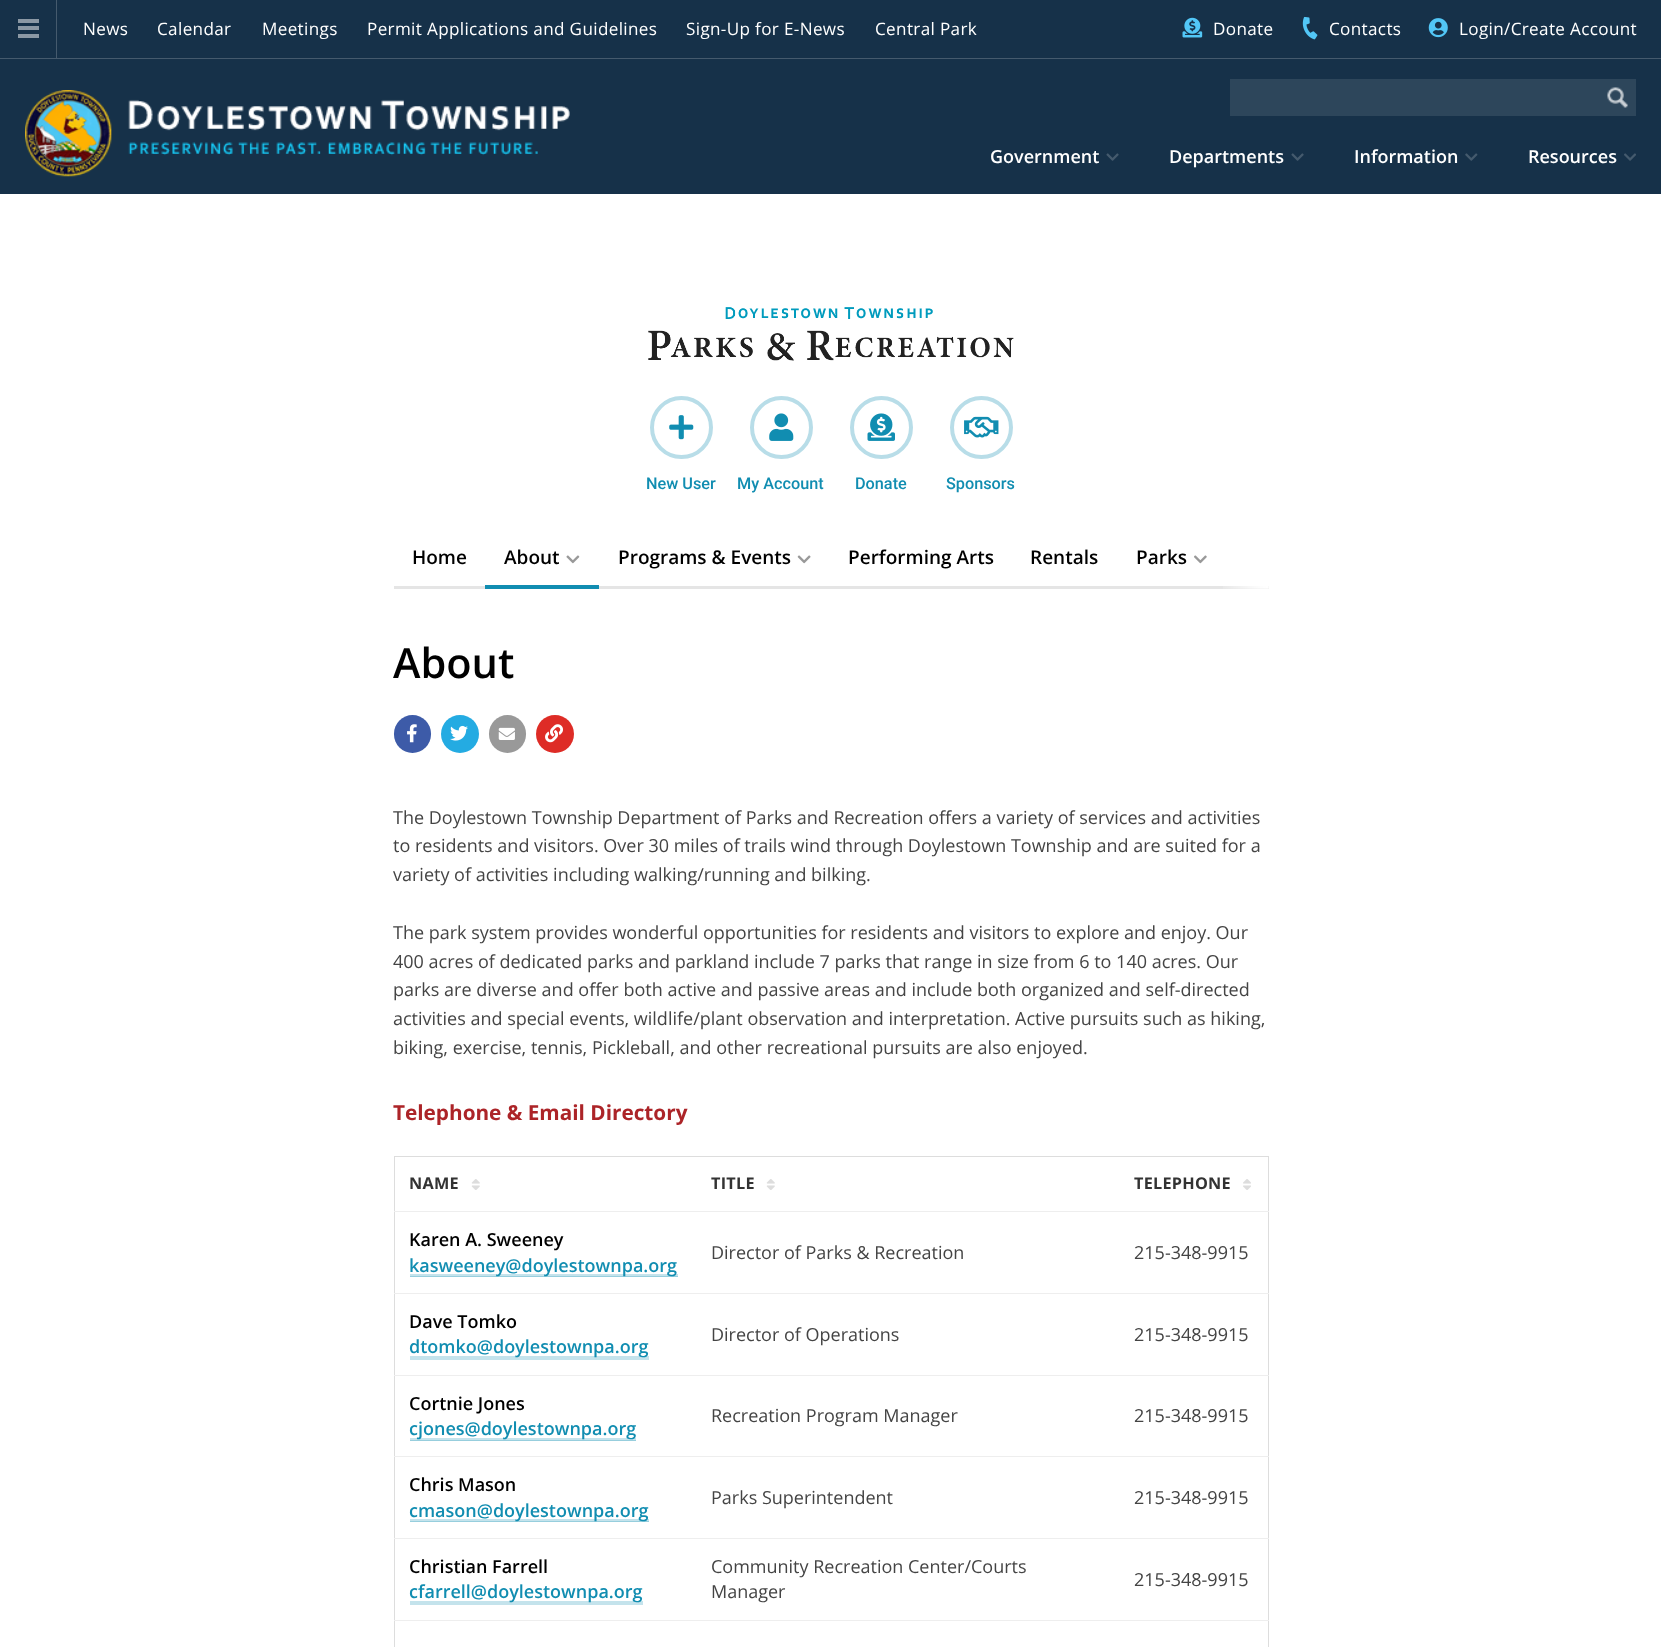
(async () => {
  const canvas = document.querySelector("canvas");
  canvas.width = 1661;
  canvas.height = 1647;
  const ctx = canvas.getContext("2d");
  ctx.miterLimit = 4;
  ctx.fontKerning = "normal";
  async function loadImage(src) {
    const img = new Image();
    img.src = src;
    await img.decode();
    return img;
  }

  ctx.fillStyle = "#163149";
  ctx.fillRect(0, 0, 1661, 1647);
  for (const [x, y, w, h, color] of [
    [18, 26, 21, 4, "#8b98a4"],
    [18, 19, 21, 4, "#8b98a4"],
    [18, 34, 21, 4, "#8b98a4"],
    [56, 0, 1, 58, "#455a6d"],
  ]) {
    ctx.fillStyle = color;
    ctx.fillRect(x, y, w, h);
  }
  ctx.drawImage(await loadImage("img/1.png"), 1182, 17, 21, 21);
  ctx.drawImage(await loadImage("img/2.png"), 1302, 16, 16, 24);
  ctx.drawImage(await loadImage("img/3.png"), 1428, 18, 20, 20);
  ctx.fillRect(0, 58, 1661, 1);
  ctx.drawImage(await loadImage("img/4.png"), 25, 90, 545, 87);
  ctx.fillStyle = "#2d465b";
  ctx.fillRect(1230, 79, 406, 37);
  ctx.drawImage(await loadImage("img/5.png"), 1607, 87, 21, 21);
  ctx.drawImage(await loadImage("img/6.png"), 1106, 153, 13, 8);
  ctx.drawImage(await loadImage("img/6.png"), 1291, 153, 13, 8);
  ctx.drawImage(await loadImage("img/7.png"), 1465, 153, 13, 8);
  ctx.drawImage(await loadImage("img/8.png"), 1624, 153, 12, 8);
  ctx.fillStyle = "#ffffff";
  ctx.fillRect(0, 194, 1661, 1453);
  ctx.fillStyle = "#e5e5e5";
  ctx.fillRect(394, 586, 875, 3);
  ctx.drawImage(await loadImage("img/9.png"), 648, 307, 366, 54);
  ctx.beginPath();
  ctx.arc(681.5, 427.5, 29.5, 0, Math.PI * 2);
  ctx.strokeStyle = "#b8dde8";
  ctx.lineWidth = 4;
  ctx.stroke();
  ctx.drawImage(await loadImage("img/10.png"), 669, 415, 25, 25);
  ctx.beginPath();
  ctx.arc(781.5, 427.5, 29.5, 0, Math.PI * 2);
  ctx.stroke();
  ctx.drawImage(await loadImage("img/11.png"), 769, 413, 25, 28);
  ctx.beginPath();
  ctx.arc(881.5, 427.5, 29.5, 0, Math.PI * 2);
  ctx.stroke();
  ctx.drawImage(await loadImage("img/12.png"), 867, 413, 28, 28);
  ctx.beginPath();
  ctx.arc(981.5, 427.5, 29.5, 0, Math.PI * 2);
  ctx.stroke();
  ctx.drawImage(await loadImage("img/13.png"), 964, 416, 35, 22);
  ctx.fillStyle = "#118db1";
  ctx.fillRect(485, 585, 114, 4);
  ctx.drawImage(await loadImage("img/14.png"), 566, 555, 14, 9);
  ctx.drawImage(await loadImage("img/15.png"), 797, 555, 14, 9);
  ctx.drawImage(await loadImage("img/16.png"), 1194, 555, 13, 9);
  ctx.drawImage(await loadImage("img/17.png"), 1223, 550, 46, 39);
  ctx.fillStyle = "#3d5ba8";
  ctx.beginPath();
  ctx.roundRect(394, 715, 37, 38, 18.5);
  ctx.fill();
  ctx.drawImage(await loadImage("img/18.png"), 407, 724, 10, 19);
  ctx.fillStyle = "#24abe2";
  ctx.beginPath();
  ctx.arc(460, 734, 19, 0, Math.PI * 2);
  ctx.fill();
  ctx.drawImage(await loadImage("img/19.png"), 450, 725, 18, 16);
  ctx.fillStyle = "#999999";
  ctx.beginPath();
  ctx.roundRect(489, 715, 37, 38, 18.5);
  ctx.fill();
  ctx.drawImage(await loadImage("img/20.png"), 498, 727, 17, 13);
  ctx.fillStyle = "#de2c26";
  ctx.beginPath();
  ctx.arc(555, 734, 19, 0, Math.PI * 2);
  ctx.fill();
  ctx.drawImage(await loadImage("img/21.png"), 545, 724, 18, 19);
  for (const [x, y, w, h, color] of [
    [394, 1156, 875, 1, "#dddddd"],
    [1268, 1156, 1, 491, "#dddddd"],
    [394, 1156, 1, 491, "#dddddd"],
  ]) {
    ctx.fillStyle = color;
    ctx.fillRect(x, y, w, h);
  }
  ctx.drawImage(await loadImage("img/22.png"), 471, 1179, 9, 11);
  ctx.drawImage(await loadImage("img/22.png"), 766, 1179, 9, 11);
  ctx.drawImage(await loadImage("img/23.png"), 1243, 1179, 8, 11);
  for (const [x, y, w, h, color] of [
    [410, 1274, 268, 2, "#c4e3ec"],
    [410, 1276, 268, 1, "#97cedd"],
    [394, 1211, 875, 1, "#eeeeee"],
    [410, 1356, 239, 4, "#c4e3ec"],
    [394, 1293, 875, 1, "#eeeeee"],
    [410, 1438, 226, 2, "#c4e3ec"],
    [410, 1440, 226, 1, "#97cedd"],
    [394, 1375, 875, 1, "#eeeeee"],
    [410, 1519, 239, 2, "#c4e3ec"],
    [410, 1521, 239, 1, "#97cedd"],
    [394, 1456, 875, 1, "#eeeeee"],
    [410, 1601, 233, 4, "#c4e3ec"],
    [394, 1538, 875, 1, "#eeeeee"],
    [394, 1620, 875, 1, "#eeeeee"],
  ]) {
    ctx.fillStyle = color;
    ctx.fillRect(x, y, w, h);
  }
  ctx.letterSpacing = "0.35px";
  ctx.font = "17.1px Open Sans";
  ctx.fillStyle = "#ffffff";
  for (const [text, x, y] of [
    ["News", 83, 35],
    ["Calendar", 157, 35],
    ["Meetings", 262, 35],
    ["Permit Applications and Guidelines", 367, 35],
    ["Sign-Up for E-News", 686, 35],
    ["Central Park", 875, 35],
    ["Donate", 1213, 35],
    ["Contacts", 1329, 35],
    ["Login/Create Account", 1459, 35],
  ]) {
    ctx.fillText(text, x, y);
  }
  ctx.letterSpacing = "0px";
  ctx.font = "600 18px Open Sans";
  for (const [text, x, y] of [
    ["Government", 990, 163],
    ["Departments", 1169, 163],
    ["Information", 1354, 163],
    ["Resources", 1528, 163],
  ]) {
    ctx.fillText(text, x, y);
  }
  ctx.font = "500 16.25px Roboto";
  ctx.fillStyle = "#118db1";
  for (const [text, x, y] of [
    ["New User", 646, 489],
    ["My Account", 737, 489],
    ["Donate", 855, 489],
    ["Sponsors", 946, 489],
  ]) {
    ctx.fillText(text, x, y);
  }
  ctx.font = "600 19px Open Sans";
  ctx.fillStyle = "#000000";
  for (const [text, x, y] of [
    ["Home", 412, 564],
    ["About", 504, 564],
    ["Programs & Events", 618, 564],
    ["Performing Arts", 848, 564],
    ["Rentals", 1030, 564],
    ["Parks", 1136, 564],
  ]) {
    ctx.fillText(text, x, y);
  }
  ctx.font = "600 41.5px Open Sans";
  ctx.fillText("About", 393, 678);
  ctx.font = "18px Open Sans";
  ctx.fillStyle = "#444444";
  for (const [text, x, y] of [
    ["The Doylestown Township Department of Parks and Recreation offers a variety of services and activities", 393, 824],
    ["to residents and visitors. Over 30 miles of trails wind through Doylestown Township and are suited for a", 393, 852],
    ["variety of activities including walking/running and bilking.", 393, 881],
    ["The park system provides wonderful opportunities for residents and visitors to explore and enjoy. Our", 393, 939],
    ["400 acres of dedicated parks and parkland include 7 parks that range in size from 6 to 140 acres. Our", 393, 968],
    ["parks are diverse and offer both active and passive areas and include both organized and self-directed", 393, 996],
    ["activities and special events, wildlife/plant observation and interpretation. Active pursuits such as hiking,", 393, 1025],
    ["biking, exercise, tennis, Pickleball, and other recreational pursuits are also enjoyed.", 393, 1054],
  ]) {
    ctx.fillText(text, x, y);
  }
  ctx.font = "bold 20.75px Open Sans";
  ctx.fillStyle = "#ac2428";
  ctx.fillText("Telephone & Email Directory", 393, 1120);
  ctx.letterSpacing = "0.25px";
  ctx.font = "bold 16.25px Open Sans";
  ctx.fillStyle = "#333333";
  for (const [text, x, y] of [
    ["NAME", 409, 1189],
    ["TITLE", 711, 1189],
    ["TELEPHONE", 1134, 1189],
  ]) {
    ctx.fillText(text, x, y);
  }
  ctx.letterSpacing = "0px";
  ctx.font = "600 18px Open Sans";
  ctx.fillStyle = "#000000";
  ctx.fillText("Karen A. Sweeney", 409, 1246);
  ctx.fillStyle = "#118db1";
  ctx.fillText("kasweeney@doylestownpa.org", 409, 1272);
  ctx.font = "18px Open Sans";
  ctx.fillStyle = "#444444";
  ctx.fillText("Director of Parks & Recreation", 711, 1259);
  ctx.fillText("215-348-9915", 1134, 1259);
  ctx.font = "600 18px Open Sans";
  ctx.fillStyle = "#000000";
  ctx.fillText("Dave Tomko", 409, 1328);
  ctx.fillStyle = "#118db1";
  ctx.fillText("dtomko@doylestownpa.org", 409, 1353);
  ctx.font = "18px Open Sans";
  ctx.fillStyle = "#444444";
  ctx.fillText("Director of Operations", 711, 1341);
  ctx.fillText("215-348-9915", 1134, 1341);
  ctx.font = "600 18px Open Sans";
  ctx.fillStyle = "#000000";
  ctx.fillText("Cortnie Jones", 409, 1410);
  ctx.fillStyle = "#118db1";
  ctx.fillText("cjones@doylestownpa.org", 409, 1435);
  ctx.font = "18px Open Sans";
  ctx.fillStyle = "#444444";
  ctx.fillText("Recreation Program Manager", 711, 1422);
  ctx.fillText("215-348-9915", 1134, 1422);
  ctx.font = "600 18px Open Sans";
  ctx.fillStyle = "#000000";
  ctx.fillText("Chris Mason", 409, 1491);
  ctx.fillStyle = "#118db1";
  ctx.fillText("cmason@doylestownpa.org", 409, 1517);
  ctx.font = "18px Open Sans";
  ctx.fillStyle = "#444444";
  ctx.fillText("Parks Superintendent", 711, 1504);
  ctx.fillText("215-348-9915", 1134, 1504);
  ctx.font = "600 18px Open Sans";
  ctx.fillStyle = "#000000";
  ctx.fillText("Christian Farrell", 409, 1573);
  ctx.fillStyle = "#118db1";
  ctx.fillText("cfarrell@doylestownpa.org", 409, 1598);
  ctx.font = "18px Open Sans";
  ctx.fillStyle = "#444444";
  for (const [text, x, y] of [
    ["Community Recreation Center/Courts", 711, 1573],
    ["Manager", 711, 1598],
    ["215-348-9915", 1134, 1586],
  ]) {
    ctx.fillText(text, x, y);
  }
})();
